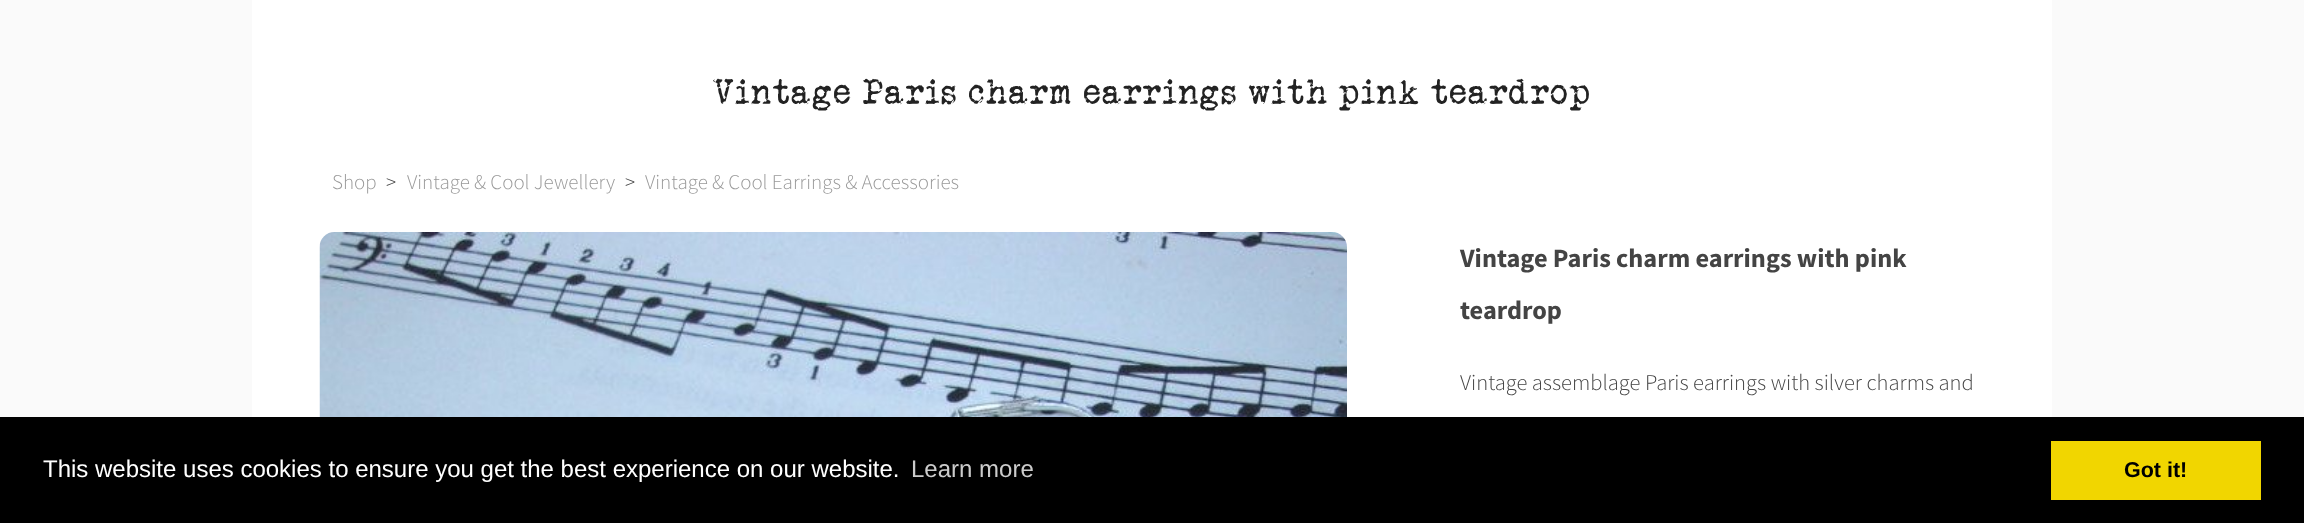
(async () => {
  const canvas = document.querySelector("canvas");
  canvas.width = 2304;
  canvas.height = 523;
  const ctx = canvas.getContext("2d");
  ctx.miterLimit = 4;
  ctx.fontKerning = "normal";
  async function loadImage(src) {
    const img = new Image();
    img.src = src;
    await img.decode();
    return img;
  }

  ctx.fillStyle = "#fafafa";
  ctx.fillRect(0, 0, 2304, 523);
  ctx.fillStyle = "#ffffff";
  ctx.fillRect(252, 0, 1800, 417);
  ctx.drawImage(await loadImage("img/1.png"), 319, 232, 1028, 185);
  ctx.fillStyle = "#000000";
  ctx.fillRect(0, 417, 2304, 106);
  ctx.fillStyle = "#f1d600";
  ctx.fillRect(2051, 441, 210, 59);
  ctx.letterSpacing = "1.5px";
  ctx.font = "36.05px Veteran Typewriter";
  ctx.fillStyle = "#222222";
  ctx.fillText("Vintage Paris charm earrings with pink teardrop", 713, 104);
  ctx.letterSpacing = "0px";
  ctx.font = "300 21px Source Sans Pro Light";
  ctx.fillStyle = "#999999";
  ctx.fillText("Shop", 332, 189);
  ctx.fillStyle = "#444444";
  ctx.fillText(">", 386, 189);
  ctx.fillStyle = "#999999";
  ctx.fillText("Vintage & Cool Jewellery", 407, 189);
  ctx.fillStyle = "#444444";
  ctx.fillText(">", 625, 189);
  ctx.fillStyle = "#999999";
  ctx.fillText("Vintage & Cool Earrings & Accessories", 645, 189);
  ctx.font = "bold 26.3px Source Sans Pro";
  ctx.fillStyle = "#444444";
  ctx.fillText("Vintage Paris charm earrings with pink", 1460, 267);
  ctx.fillText("teardrop", 1460, 319);
  ctx.font = "300 22.5px Source Sans Pro Light";
  ctx.fillText("Vintage assemblage Paris earrings with silver charms and", 1460, 390);
  ctx.font = "24px Liberation Sans";
  ctx.fillStyle = "#ffffff";
  ctx.fillText("This website uses cookies to ensure you get the best experience on our website.", 43, 477);
  ctx.fillStyle = "#cccccc";
  ctx.fillText("Learn more", 911, 477);
  ctx.font = "bold 21.5px Liberation Sans";
  ctx.fillStyle = "#000000";
  ctx.fillText("Got it!", 2124, 477);
})();
